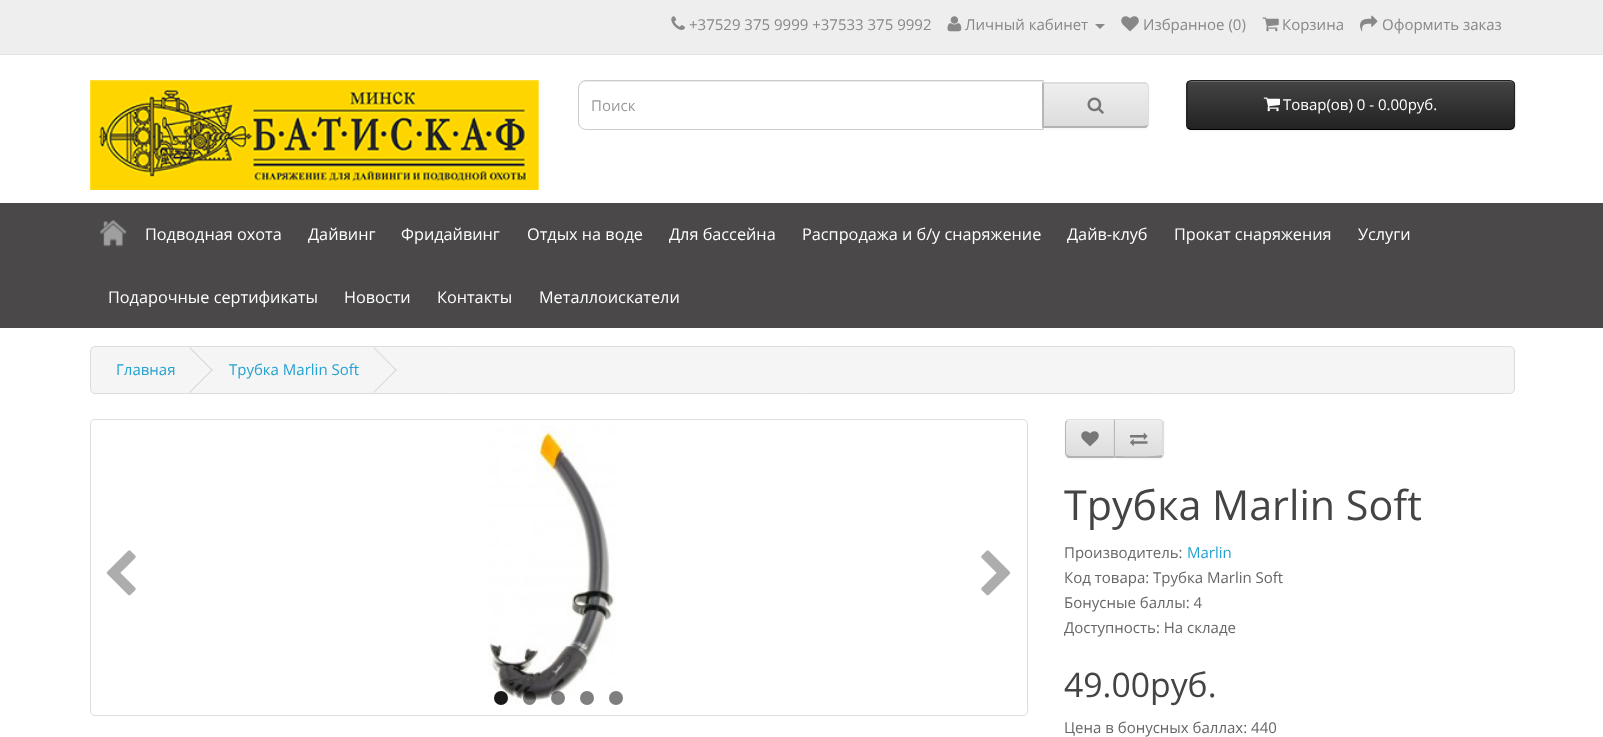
(async () => {
  const canvas = document.querySelector("canvas");
  canvas.width = 1603;
  canvas.height = 737;
  const ctx = canvas.getContext("2d");
  ctx.miterLimit = 4;
  ctx.fontKerning = "normal";
  async function loadImage(src) {
    const img = new Image();
    img.src = src;
    await img.decode();
    return img;
  }
  let gradient, path;

  ctx.fillStyle = "#ffffff";
  ctx.fillRect(0, 0, 1603, 737);
  ctx.fillStyle = "#eeeeee";
  ctx.fillRect(0, 0, 1603, 54);
  ctx.fillStyle = "#e2e2e2";
  ctx.fillRect(0, 54, 1603, 1);
  ctx.drawImage(await loadImage("img/1.png"), 671, 16, 14, 14);
  ctx.drawImage(await loadImage("img/2.png"), 947, 16, 15, 16);
  ctx.fillStyle = "#888888";
  path = new Path2D("M1095 24H1105L1100 29Z");
  ctx.fill(path);
  ctx.drawImage(await loadImage("img/3.png"), 1121, 16, 18, 16);
  ctx.drawImage(await loadImage("img/4.png"), 1262, 17, 17, 15);
  ctx.drawImage(await loadImage("img/5.png"), 1360, 15, 18, 17);
  ctx.drawImage(await loadImage("img/6.png"), 90, 80, 449, 110);
  ctx.fillStyle = "#ececec";
  path = new Path2D("M585 82H1042V129H1043V81H585C580 81 579 85 579 89C579 85 582 82 585 82Z");
  ctx.fill(path);
  ctx.beginPath();
  ctx.roundRect(578.5, 80.5, 465, 49, [7.5, 0, 0, 7.5]);
  ctx.strokeStyle = "#cccccc";
  ctx.stroke();
  ctx.fillStyle = "rgba(0, 0, 0, 0.05)";
  ctx.filter = "blur(1px)";
  ctx.beginPath();
  ctx.roundRect(1043, 84, 106, 45, 5);
  ctx.fill();
  ctx.filter = "none";
  ctx.save();
  ctx.beginPath();
  ctx.roundRect(1043, 83, 106, 45, [0, 5, 5, 0]);
  ctx.clip();
  gradient = ctx.createLinearGradient(1096, 84, 1096, 126);
  gradient.addColorStop(0, "#eeeeee");
  gradient.addColorStop(1, "#dddddd");
  ctx.fillStyle = gradient;
  ctx.fillRect(1044, 84, 105, 42);
  ctx.restore();
  ctx.fillStyle = "#f1f1f1";
  path = new Path2D("M1044 85H1144C1146 85 1148 87 1148 89V88C1148 86 1146 84 1144 84H1044Z");
  ctx.fill(path);
  ctx.fillStyle = "#dddddd";
  path = new Path2D("M1044 84L1042 82H1146L1148 84L1147 85L1144 84Z");
  ctx.fill(path);
  path = new Path2D("M1149 124L1148 126L1147 125C1147 125 1148 124 1148 122V88C1148 86 1147 85 1147 85L1148 84L1149 86Z");
  ctx.fill(path);
  ctx.fillStyle = "#b3b3b3";
  path = new Path2D("M1148 126L1146 128H1042L1044 126H1144L1147 125Z");
  ctx.fill(path);
  ctx.fillStyle = "#b7b7b7";
  path = new Path2D("M1042 128L1044 126V84L1042 82Z");
  ctx.fill(path);
  ctx.drawImage(await loadImage("img/7.png"), 1087, 97, 17, 17);
  ctx.fillStyle = "rgba(0, 0, 0, 0.05)";
  ctx.filter = "blur(1px)";
  ctx.beginPath();
  ctx.roundRect(1186, 81, 329, 50, 5);
  ctx.fill();
  ctx.filter = "none";
  ctx.save();
  ctx.beginPath();
  ctx.roundRect(1186, 80, 329, 50, 5);
  ctx.clip();
  gradient = ctx.createLinearGradient(1351, 81, 1351, 129);
  gradient.addColorStop(0, "#444444");
  gradient.addColorStop(1, "#222222");
  ctx.fillStyle = gradient;
  ctx.fillRect(1186, 81, 329, 48);
  ctx.restore();
  ctx.fillStyle = "#696969";
  path = new Path2D("M1191 82H1510C1512 82 1514 84 1514 86V85C1514 83 1512 81 1510 81H1192C1190 81 1188 83 1188 85V86C1188 84 1189 82 1191 82Z");
  ctx.fill(path);
  path = new Path2D("M1513 128C1512.5 129 1511 129.5 1510 129.5H1191C1190 129.5 1189 129 1188 128");
  ctx.strokeStyle = "#000000";
  ctx.lineWidth = 1.2;
  ctx.stroke(path);
  path = new Path2D("M1188 128C1187.5 127.5 1187 126 1187 125V85C1187 84 1187.5 82.5 1188 82C1189 81 1190 80.5 1191 80.5H1510C1511 80.5 1512.5 81 1513 82C1514 82.5 1514.5 84 1514.5 85V125C1514.5 126 1514 127.5 1513 128");
  ctx.strokeStyle = "#222222";
  ctx.stroke(path);
  ctx.drawImage(await loadImage("img/8.png"), 1263, 97, 17, 15);
  ctx.fillStyle = "#4a4849";
  ctx.fillRect(0, 203, 1603, 125);
  ctx.drawImage(await loadImage("img/9.png"), 100, 220, 27, 27);
  ctx.fillStyle = "#f5f5f5";
  ctx.beginPath();
  ctx.roundRect(90.5, 346.5, 1424, 47, 4.5);
  ctx.fill();
  ctx.strokeStyle = "#dddddd";
  ctx.lineWidth = 1;
  ctx.stroke();
  ctx.fillStyle = "#dddddd";
  path = new Path2D("M189 348L190 347L213 370L212 371Z");
  ctx.fill(path);
  path = new Path2D("M189 392L212 369L213 370L190 393Z");
  ctx.fill(path);
  path = new Path2D("M373.5 348L374 347L397 370L396 371Z");
  ctx.fill(path);
  path = new Path2D("M373.5 392L396 369L397 370L374 393Z");
  ctx.fill(path);
  ctx.beginPath();
  ctx.roundRect(90.5, 419.5, 937, 296, 4.5);
  ctx.stroke();
  ctx.drawImage(await loadImage("img/10.png"), 488, 425, 128, 280);
  ctx.drawImage(await loadImage("img/11.png"), 106, 550, 30, 46);
  ctx.drawImage(await loadImage("img/12.png"), 981, 550, 30, 46);
  ctx.fillStyle = "rgba(0, 0, 0, 0.9)";
  ctx.beginPath();
  ctx.arc(501, 698, 7, 0, Math.PI * 2);
  ctx.fill();
  ctx.fillStyle = "rgba(0, 0, 0, 0.5)";
  ctx.beginPath();
  ctx.roundRect(523, 691, 13, 14, 6.5);
  ctx.fill();
  ctx.beginPath();
  ctx.arc(558, 698, 7, 0, Math.PI * 2);
  ctx.fill();
  ctx.fillStyle = "#7f7f7f";
  ctx.beginPath();
  ctx.arc(587, 698, 7, 0, Math.PI * 2);
  ctx.fill();
  ctx.beginPath();
  ctx.arc(616, 698, 7, 0, Math.PI * 2);
  ctx.fill();
  ctx.fillStyle = "rgba(0, 0, 0, 0.05)";
  ctx.filter = "blur(1px)";
  ctx.beginPath();
  ctx.roundRect(1065, 420, 50, 39, 5);
  ctx.fill();
  ctx.filter = "none";
  ctx.save();
  ctx.beginPath();
  ctx.roundRect(1065, 419, 50, 39, [5, 0, 0, 5]);
  ctx.clip();
  gradient = ctx.createLinearGradient(1090, 420, 1090, 456);
  gradient.addColorStop(0, "#eeeeee");
  gradient.addColorStop(1, "#dddddd");
  ctx.fillStyle = gradient;
  ctx.fillRect(1065, 420, 49, 36);
  ctx.restore();
  ctx.fillStyle = "#f1f1f1";
  path = new Path2D("M1070 421H1114V420H1070C1068 420 1066 422 1066 424V425C1066 423 1068 421 1070 421Z");
  ctx.fill(path);
  ctx.fillStyle = "#dddddd";
  path = new Path2D("M1070 419C1069 419 1067 419 1067 420V421C1068 420 1069 420 1070 420H1114L1115 419Z");
  ctx.fill(path);
  ctx.fillStyle = "#b3b3b3";
  path = new Path2D("M1115 458H1068L1066 456L1067 455L1070 456H1114Z");
  ctx.fill(path);
  ctx.fillStyle = "#b7b7b7";
  path = new Path2D("M1065 424V452C1065 453.5 1065.5 455 1066.5 456L1067.5 455C1066.5 454.5 1066 453.5 1066 452V424C1066 423 1066.5 422 1067.5 421L1066.5 420.5C1065.5 421 1065 422.5 1065 424Z");
  ctx.fill(path);
  ctx.drawImage(await loadImage("img/13.png"), 1081, 431, 18, 16);
  ctx.fillStyle = "rgba(0, 0, 0, 0.05)";
  ctx.filter = "blur(1px)";
  ctx.beginPath();
  ctx.roundRect(1114, 420, 50, 39, 5);
  ctx.fill();
  ctx.filter = "none";
  ctx.fillStyle = "#e7e7e7";
  ctx.beginPath();
  ctx.roundRect(1114, 419, 50, 39, [0, 5, 5, 0]);
  ctx.fill();
  ctx.save();
  ctx.beginPath();
  ctx.roundRect(1114, 419, 50, 39, [0, 5, 5, 0]);
  ctx.clip();
  gradient = ctx.createLinearGradient(1139, 420, 1139, 456);
  gradient.addColorStop(0, "#eeeeee");
  gradient.addColorStop(1, "#dddddd");
  ctx.fillStyle = gradient;
  ctx.fillRect(1115, 420, 49, 36);
  ctx.restore();
  ctx.fillStyle = "rgba(255, 255, 255, 0.2)";
  path = new Path2D("M1115 421H1152C1165 421 1162 421 1162 435V455C1163 454 1163 453 1163 452V424C1163 422 1161 420 1159 420H1115Z");
  ctx.fill(path);
  ctx.fillStyle = "#dddddd";
  path = new Path2D("M1114 419L1115 420H1160L1161 421L1162 420L1159 419Z");
  ctx.fill(path);
  path = new Path2D("M1162.5 420L1164 422.5V448.5C1164 451.5 1164.5 454 1162.5 456.5L1161.5 455C1162 454.5 1162 453.5 1162 452V424C1162 423 1162 422 1161 421Z");
  ctx.fill(path);
  ctx.fillStyle = "#b3b3b3";
  path = new Path2D("M1114 458L1115 456C1121 456 1160 457 1161 455L1163 456L1161 458Z");
  ctx.fill(path);
  ctx.fillStyle = "#b7b7b7";
  path = new Path2D("M1115 420L1114 419V457L1115 456Z");
  ctx.fill(path);
  ctx.drawImage(await loadImage("img/14.png"), 1130, 432, 18, 14);
  ctx.font = "15px Open Sans";
  ctx.fillStyle = "#888888";
  for (const [text, x, y] of [
    ["+37529 375 9999 +37533 375 9992", 689, 30],
    ["Личный кабинет", 965, 30],
    ["Избранное (0)", 1143, 30],
    ["Корзина", 1282, 30],
    ["Оформить заказ", 1382, 30],
  ]) {
    ctx.fillText(text, x, y);
  }
  ctx.fillStyle = "#999999";
  ctx.fillText("Поиск", 591, 111);
  ctx.fillStyle = "#ffffff";
  ctx.fillText("Товар(ов) 0 - 0.00руб.", 1283, 110);
  ctx.font = "16.25px Open Sans";
  for (const [text, x, y] of [
    ["Подводная охота", 145, 240],
    ["Дайвинг", 308, 240],
    ["Фридайвинг", 401, 240],
    ["Отдых на воде", 527, 240],
    ["Для бассейна", 669, 240],
    ["Распродажа и б/у снаряжение", 802, 240],
    ["Дайв-клуб", 1067, 240],
    ["Прокат снаряжения", 1174, 240],
    ["Услуги", 1358, 240],
    ["Подарочные сертификаты", 108, 303],
    ["Новости", 344, 303],
    ["Контакты", 437, 303],
    ["Металлоискатели", 539, 303],
  ]) {
    ctx.fillText(text, x, y);
  }
  ctx.font = "15px Open Sans";
  ctx.fillStyle = "#23a1d1";
  ctx.fillText("Главная", 116, 375);
  ctx.fillText("Трубка Marlin Soft", 229, 375);
  ctx.font = "41.25px Open Sans";
  ctx.fillStyle = "#444444";
  ctx.fillText("Трубка Marlin Soft", 1064, 520);
  ctx.font = "15px Open Sans";
  ctx.fillStyle = "#666666";
  ctx.fillText("Производитель:", 1064, 558);
  ctx.fillStyle = "#23a1d1";
  ctx.fillText("Marlin", 1187, 558);
  ctx.fillStyle = "#666666";
  for (const [text, x, y] of [
    ["Код товара: Трубка Marlin Soft", 1064, 583],
    ["Бонусные баллы: 4", 1064, 608],
    ["Доступность: На складе", 1064, 633],
  ]) {
    ctx.fillText(text, x, y);
  }
  ctx.font = "33.75px Open Sans";
  ctx.fillStyle = "#444444";
  ctx.fillText("49.00руб.", 1064, 697);
  ctx.font = "15px Open Sans";
  ctx.fillStyle = "#666666";
  ctx.fillText("Цена в бонусных баллах: 440", 1064, 733);
})();
